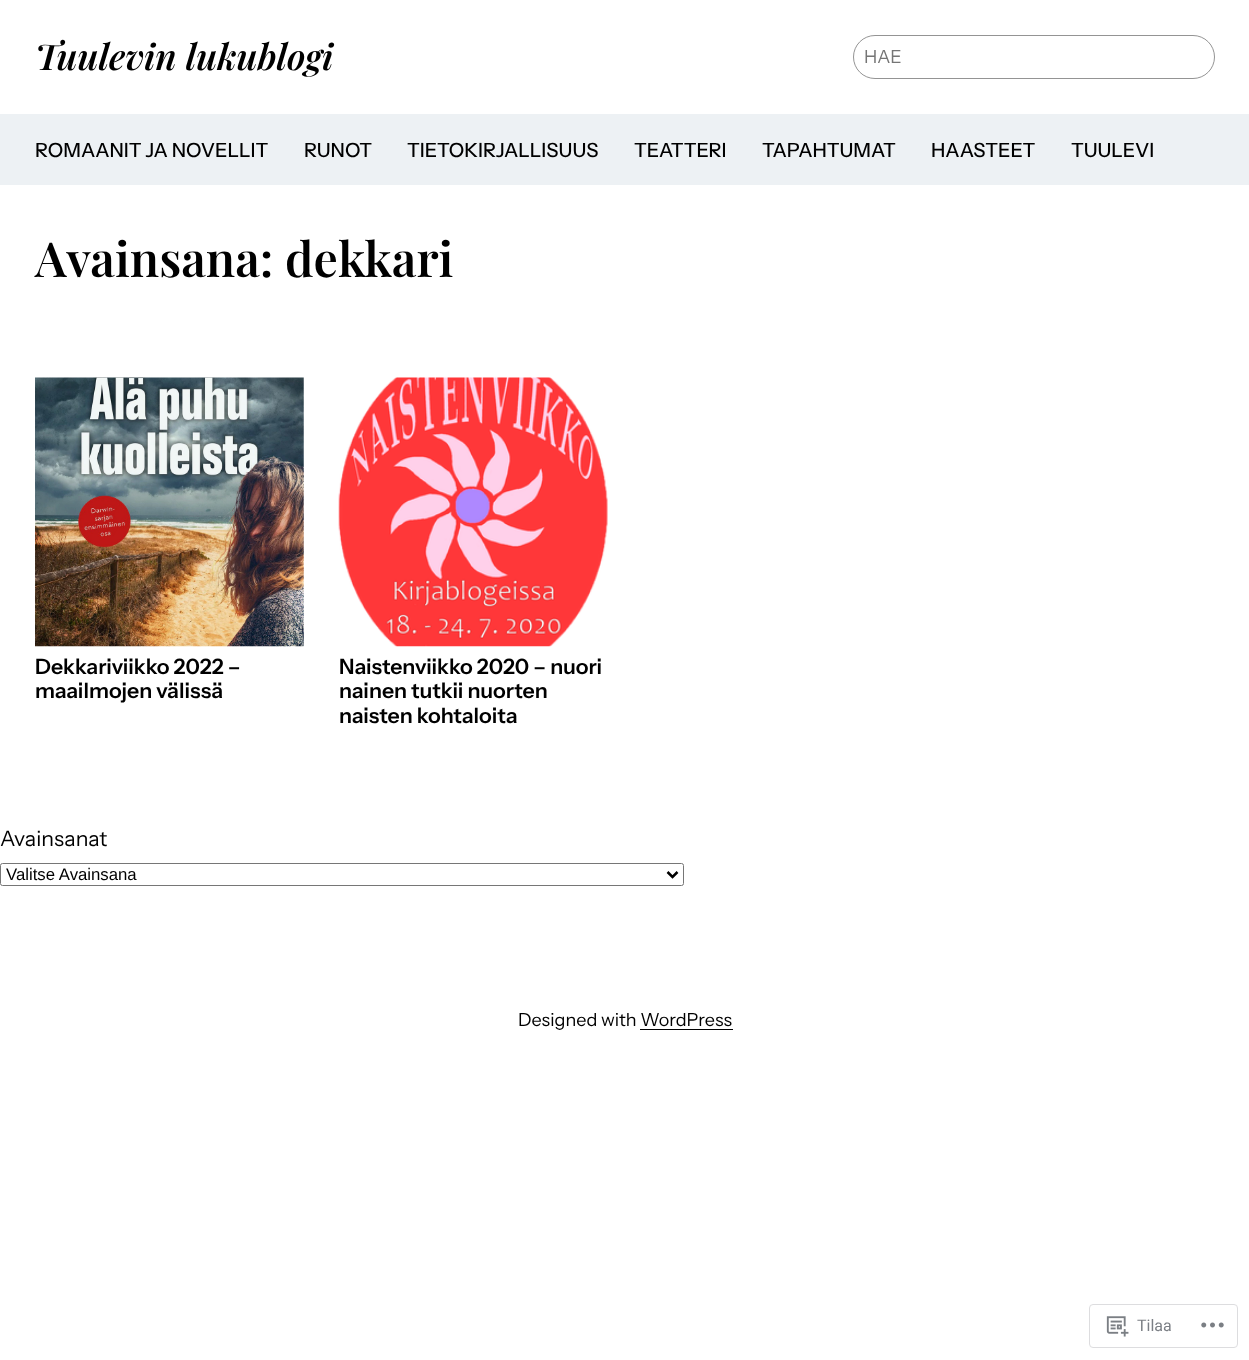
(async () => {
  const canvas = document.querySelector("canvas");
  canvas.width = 1249;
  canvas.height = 1360;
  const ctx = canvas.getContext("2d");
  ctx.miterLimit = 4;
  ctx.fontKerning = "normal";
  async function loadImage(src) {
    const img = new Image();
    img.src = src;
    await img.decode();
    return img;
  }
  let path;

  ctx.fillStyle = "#ffffff";
  ctx.fillRect(0, 0, 1249, 1360);
  ctx.beginPath();
  ctx.roundRect(853.5, 35.5, 361, 43, 21.5);
  ctx.strokeStyle = "#949494";
  ctx.stroke();
  ctx.fillStyle = "#edf1f4";
  ctx.fillRect(0, 114, 1249, 71);
  ctx.drawImage(await loadImage("img/1.png"), 35, 377, 269, 270);
  ctx.drawImage(await loadImage("img/2.png"), 338, 377, 270, 270);
  ctx.beginPath();
  ctx.roundRect(0.5, 863.5, 683, 22, 2);
  ctx.strokeStyle = "#767676";
  ctx.stroke();
  path = new Path2D("M667.5 872L672.5 877L677.5 872");
  ctx.strokeStyle = "#000000";
  ctx.lineWidth = 2.5;
  ctx.stroke(path);
  ctx.fillStyle = "#000000";
  ctx.fillRect(640, 1029, 93, 1);
  ctx.beginPath();
  ctx.roundRect(1089.5, 1304.5, 148, 43, 3.5);
  ctx.strokeStyle = "#dddddf";
  ctx.lineWidth = 1;
  ctx.stroke();
  ctx.drawImage(await loadImage("img/3.png"), 1106, 1316, 23, 21);
  ctx.drawImage(await loadImage("img/4.png"), 1201, 1322, 23, 6);
  ctx.font = "italic 600 35.75px Playfair Display";
  ctx.fillText("Tuulevin lukublogi", 35, 70);
  ctx.font = "18px Instrument Sans";
  ctx.fillStyle = "#757575";
  ctx.fillText("HAE", 864, 63);
  ctx.font = "500 19.6px Instrument Sans";
  ctx.fillStyle = "#000000";
  for (const [text, x, y] of [
    ["ROMAANIT JA NOVELLIT", 35, 157],
    ["RUNOT", 304, 157],
    ["TIETOKIRJALLISUUS", 407, 157],
    ["TEATTERI", 634, 157],
    ["TAPAHTUMAT", 762, 157],
    ["HAASTEET", 931, 157],
    ["TUULEVI", 1071, 157],
  ]) {
    ctx.fillText(text, x, y);
  }
  ctx.font = "600 48.25px Playfair Display";
  ctx.fillText("Avainsana: dekkari", 35, 277);
  ctx.font = "600 21.25px Instrument Sans";
  for (const [text, x, y] of [
    ["Dekkariviikko 2022 –", 35, 674],
    ["maailmojen välissä", 35, 698],
    ["Naistenviikko 2020 – nuori", 339, 674],
    ["nainen tutkii nuorten", 339, 698],
    ["naisten kohtaloita", 339, 723],
  ]) {
    ctx.fillText(text, x, y);
  }
  ctx.font = "21.25px Instrument Sans";
  ctx.fillText("Avainsanat", 0, 846);
  ctx.font = "16.75px Liberation Sans";
  ctx.fillText("Valitse Avainsana", 6, 880);
  ctx.font = "18px Instrument Sans";
  ctx.fillText("Designed with WordPress", 518, 1026);
  ctx.font = "16px Roboto";
  ctx.fillStyle = "#7b7f85";
  ctx.fillText("Tilaa", 1137, 1331);
})();
